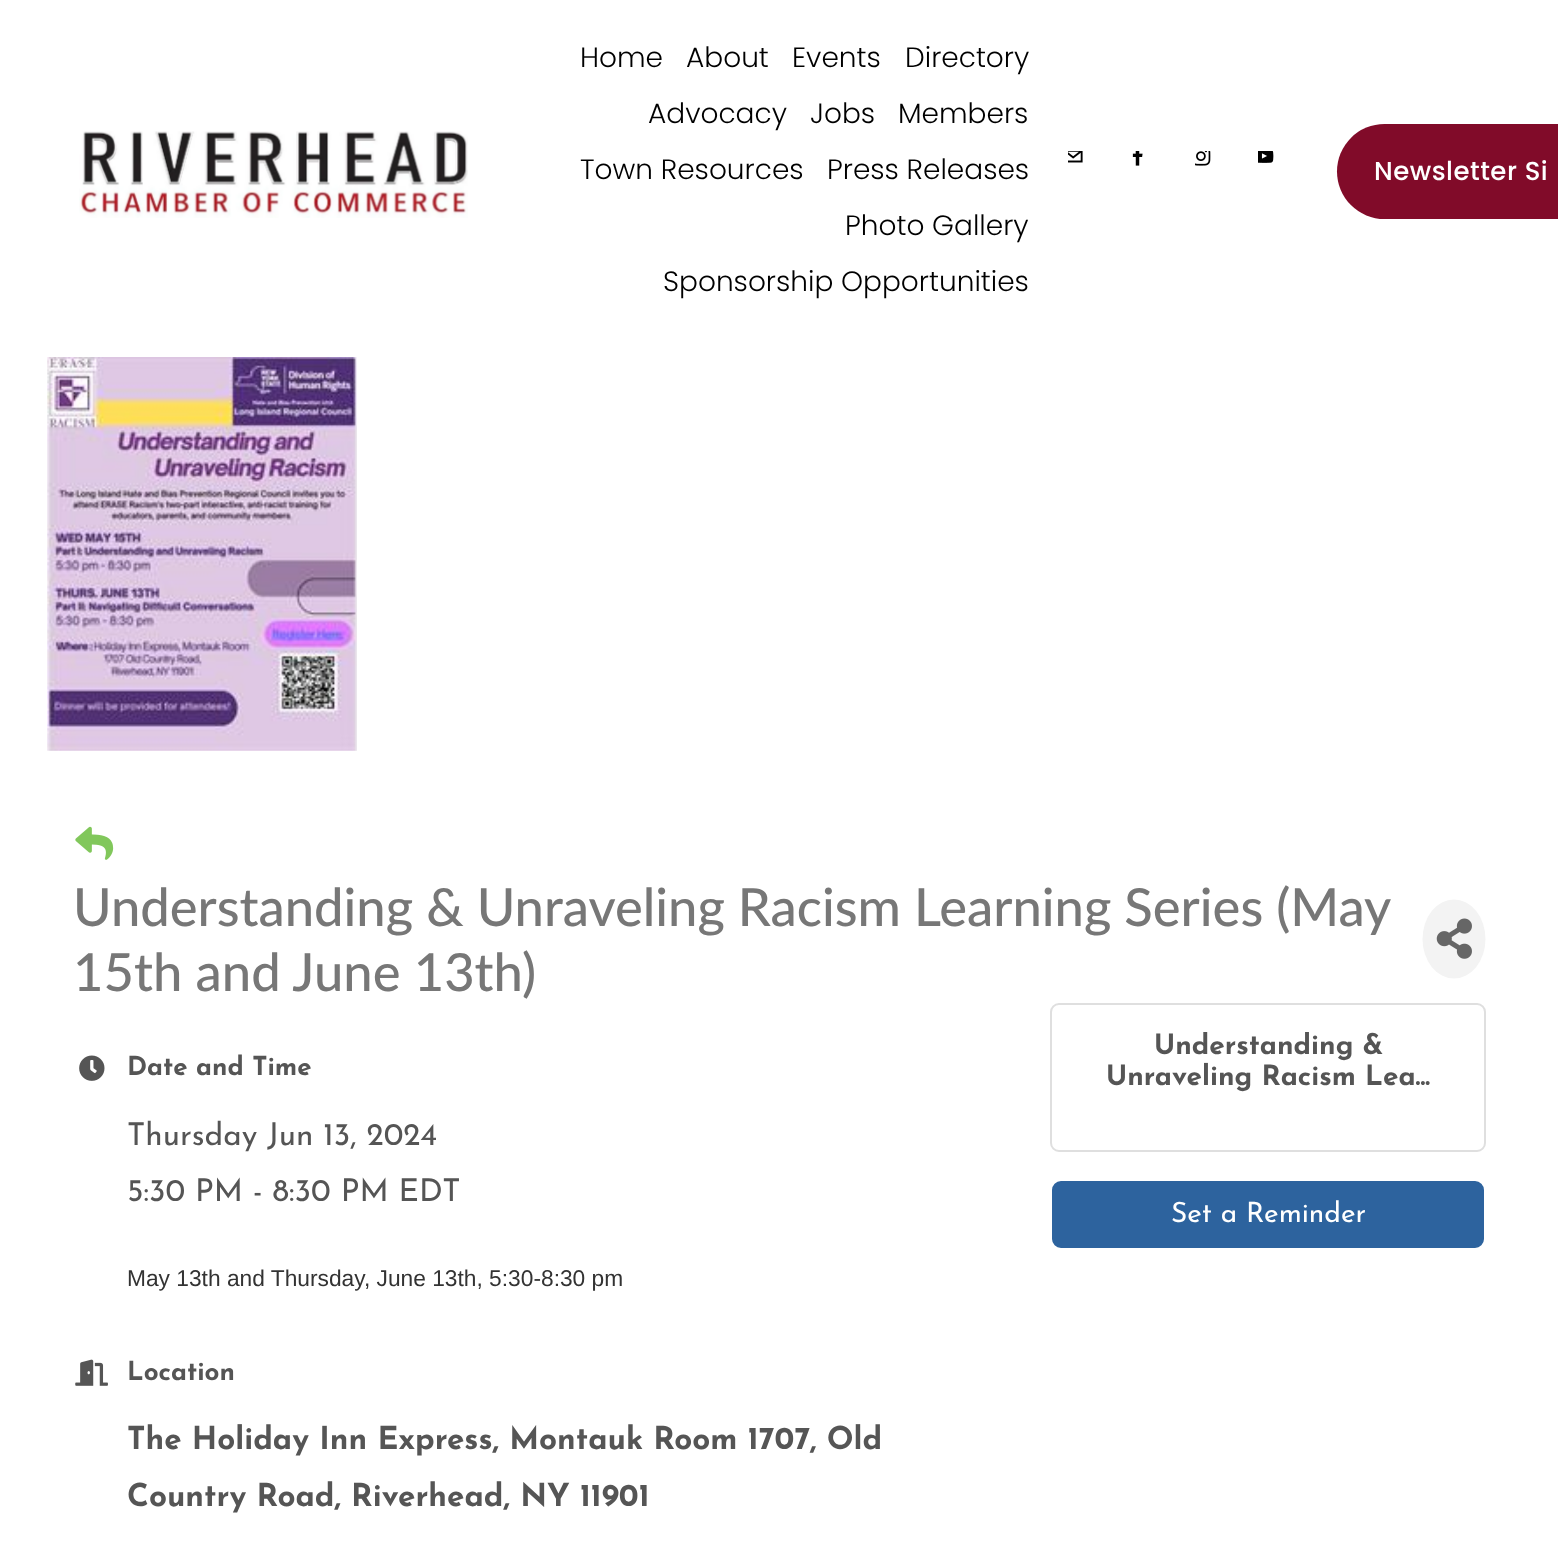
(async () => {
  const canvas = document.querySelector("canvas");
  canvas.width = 1558;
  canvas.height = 1553;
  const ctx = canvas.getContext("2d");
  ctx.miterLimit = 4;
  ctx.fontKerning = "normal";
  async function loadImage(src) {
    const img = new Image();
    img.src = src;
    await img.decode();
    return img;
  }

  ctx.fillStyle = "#ffffff";
  ctx.fillRect(0, 0, 1558, 1553);
  ctx.drawImage(await loadImage("img/1.png"), 79, 131, 389, 87);
  ctx.drawImage(await loadImage("img/2.png"), 1068, 151, 15, 12);
  ctx.drawImage(await loadImage("img/3.png"), 1132, 151, 11, 15);
  ctx.drawImage(await loadImage("img/4.png"), 1195, 151, 16, 15);
  ctx.drawImage(await loadImage("img/5.png"), 1258, 151, 16, 12);
  ctx.fillStyle = "#810b29";
  ctx.beginPath();
  ctx.roundRect(1337, 124, 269, 95, 47.5);
  ctx.fill();
  ctx.drawImage(await loadImage("img/6.png"), 47, 357, 310, 394);
  ctx.drawImage(await loadImage("img/7.png"), 75, 826, 39, 34);
  ctx.fillStyle = "#f3f3f3";
  ctx.beginPath();
  ctx.ellipse(1454, 939, 31.5, 39.5, 0, 0, Math.PI * 2);
  ctx.fill();
  ctx.drawImage(await loadImage("img/8.png"), 1436, 918, 36, 41);
  ctx.drawImage(await loadImage("img/9.png"), 79, 1055, 26, 26);
  ctx.drawImage(await loadImage("img/10.png"), 75, 1359, 33, 27);
  ctx.beginPath();
  ctx.roundRect(1051, 1004, 434, 147, 8);
  ctx.strokeStyle = "#dfdfdf";
  ctx.lineWidth = 2;
  ctx.stroke();
  ctx.fillStyle = "#2d639e";
  ctx.beginPath();
  ctx.roundRect(1053, 1182, 430, 65, 8);
  ctx.fill();
  ctx.strokeStyle = "#2d639e";
  ctx.stroke();
  ctx.font = "300 28px Poppins";
  ctx.fillStyle = "#000000";
  for (const [text, x, y] of [
    ["Home", 580, 67],
    ["About", 686, 67],
    ["Events", 792, 67],
    ["Directory", 905, 67],
    ["Advocacy", 648, 123],
    ["Jobs", 810, 123],
    ["Members", 898, 123],
    ["Town Resources", 580, 179],
    ["Press Releases", 827, 179],
    ["Photo Gallery", 845, 235],
    ["Sponsorship Opportunities", 663, 291],
  ]) {
    ctx.fillText(text, x, y);
  }
  ctx.letterSpacing = "0.5px";
  ctx.font = "500 26px Poppins";
  ctx.fillStyle = "#ffffff";
  ctx.fillText("Newsletter Si", 1374, 180);
  ctx.letterSpacing = "0px";
  ctx.wordSpacing = "-0.25px";
  ctx.font = "500 52.5px Lato";
  ctx.fillStyle = "#777777";
  ctx.fillText("Understanding & Unraveling Racism Learning Series (May", 73, 926);
  ctx.wordSpacing = "0px";
  ctx.fillText("15th and June 13th)", 73, 991);
  ctx.font = "bold 26px Josefin Sans";
  ctx.fillStyle = "#555555";
  ctx.fillText("Date and Time", 127, 1075);
  ctx.font = "31.5px Josefin Sans";
  ctx.fillText("Thursday Jun 13, 2024", 127, 1145);
  ctx.fillText("5:30 PM - 8:30 PM EDT", 127, 1201);
  ctx.font = "22.75px Liberation Sans";
  ctx.fillStyle = "#333333";
  ctx.fillText("May 13th and Thursday, June 13th, 5:30-8:30 pm", 127, 1286);
  ctx.font = "bold 26px Josefin Sans";
  ctx.fillStyle = "#555555";
  ctx.fillText("Location", 127, 1380);
  ctx.font = "bold 31.5px Josefin Sans";
  ctx.fillText("The Holiday Inn Express, Montauk Room 1707, Old", 127, 1449);
  ctx.fillText("Country Road, Riverhead, NY 11901", 127, 1506);
  ctx.font = "bold 28px Josefin Sans";
  ctx.fillText("Understanding &", 1154, 1054);
  ctx.fillText("Unraveling Racism Lea...", 1106, 1085);
  ctx.font = "28px Josefin Sans";
  ctx.fillStyle = "#ffffff";
  ctx.fillText("Set a Reminder", 1171, 1222);
})();
